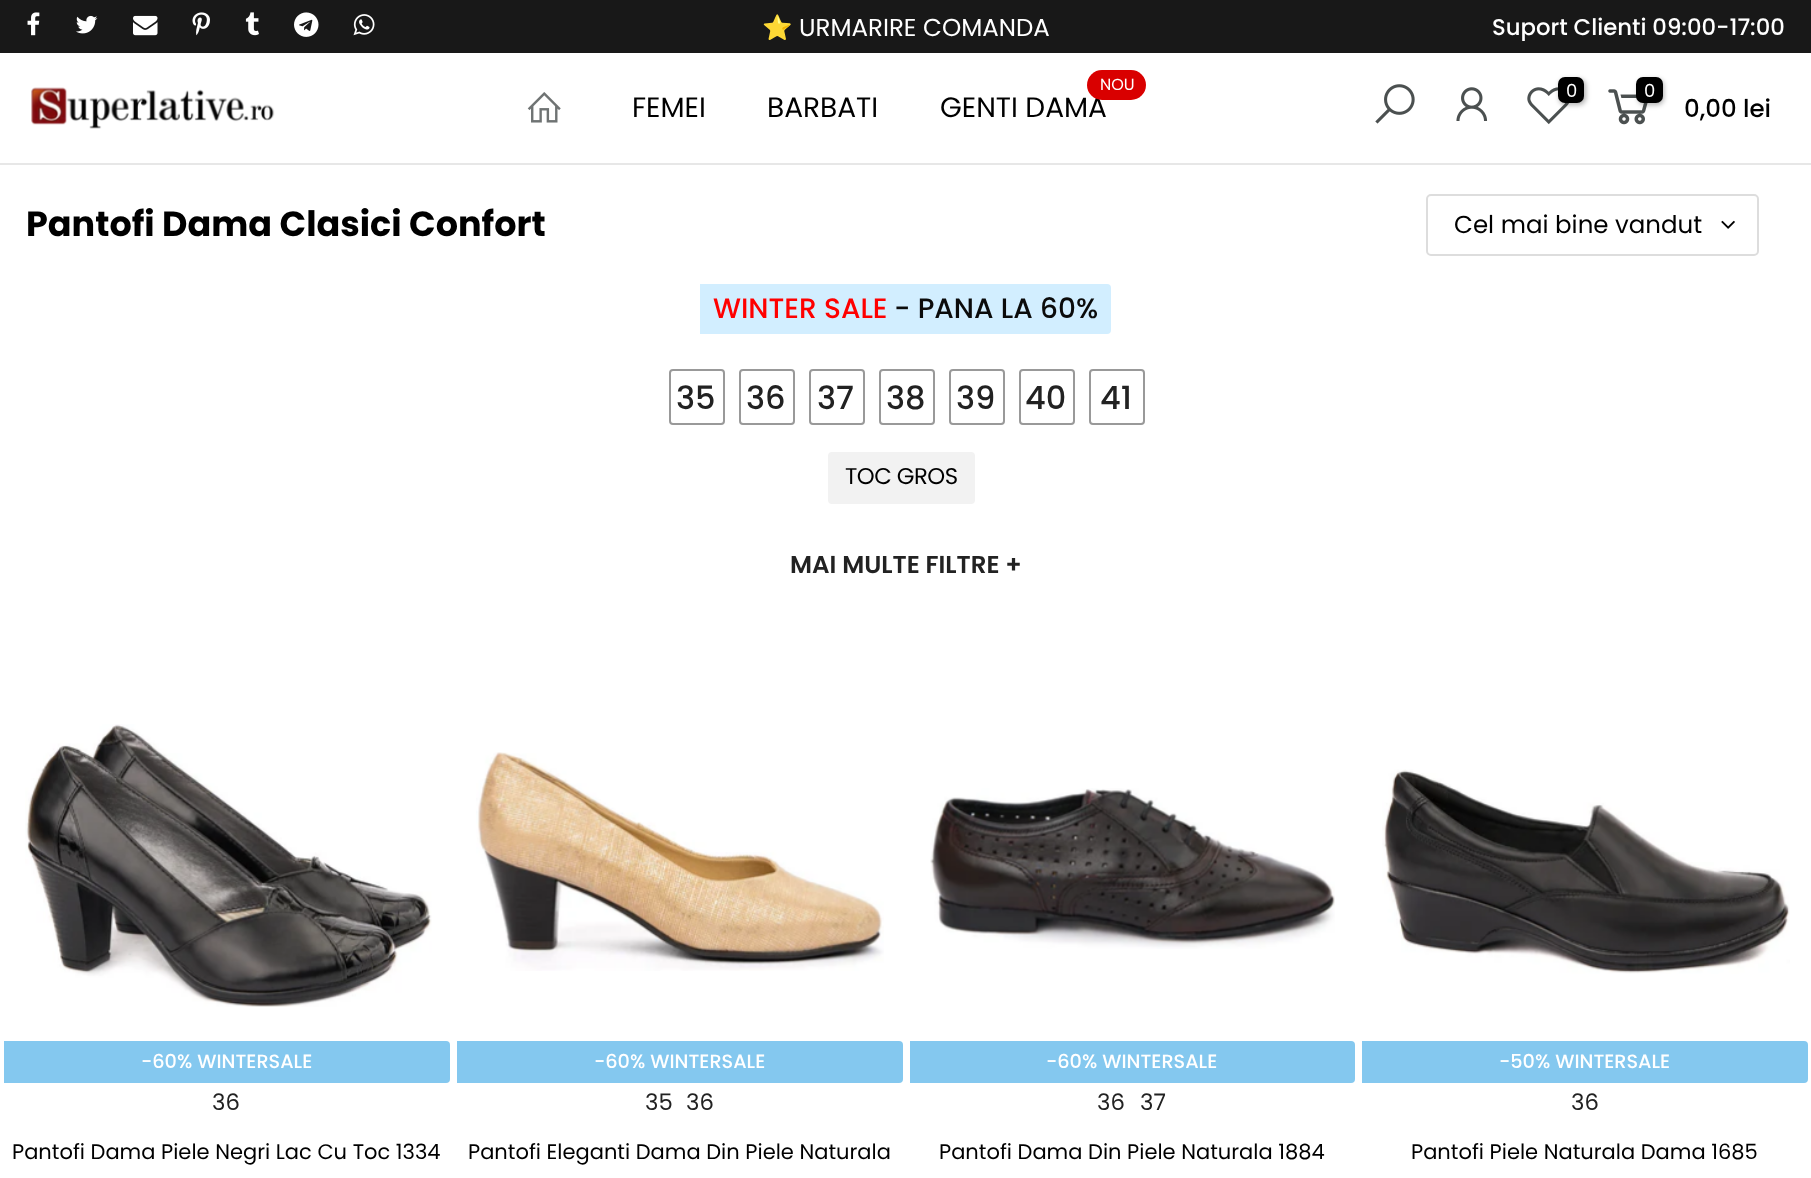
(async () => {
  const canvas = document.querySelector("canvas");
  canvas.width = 1811;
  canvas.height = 1178;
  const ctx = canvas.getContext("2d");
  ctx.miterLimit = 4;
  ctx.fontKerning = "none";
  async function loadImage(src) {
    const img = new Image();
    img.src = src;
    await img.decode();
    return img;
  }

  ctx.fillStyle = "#ffffff";
  ctx.fillRect(0, 0, 1811, 1178);
  ctx.fillStyle = "#181818";
  ctx.fillRect(0, 0, 1811, 53);
  ctx.drawImage(await loadImage("img/1.png"), 27, 12, 13, 24);
  ctx.drawImage(await loadImage("img/2.png"), 76, 15, 22, 19);
  ctx.drawImage(await loadImage("img/3.png"), 133, 15, 25, 21);
  ctx.drawImage(await loadImage("img/4.png"), 192, 12, 18, 24);
  ctx.drawImage(await loadImage("img/5.png"), 245, 12, 14, 24);
  ctx.drawImage(await loadImage("img/6.png"), 294, 12, 25, 25);
  ctx.drawImage(await loadImage("img/7.png"), 353, 14, 22, 22);
  ctx.fillStyle = "#e7e7e7";
  ctx.fillRect(0, 163, 1811, 2);
  ctx.drawImage(await loadImage("img/8.png"), 31, 87, 244, 42);
  ctx.drawImage(await loadImage("img/9.png"), 527, 92, 34, 31);
  ctx.drawImage(await loadImage("img/10.png"), 1375, 84, 40, 40);
  ctx.drawImage(await loadImage("img/11.png"), 1456, 87, 32, 34);
  ctx.drawImage(await loadImage("img/12.png"), 1527, 87, 42, 38);
  ctx.fillStyle = "rgba(0, 0, 0, 0.3)";
  ctx.filter = "blur(2.5px)";
  ctx.beginPath();
  ctx.roundRect(1559, 79, 27, 26, 7);
  ctx.fill();
  ctx.filter = "none";
  ctx.fillStyle = "#000000";
  ctx.beginPath();
  ctx.roundRect(1558, 77, 26, 26, 7);
  ctx.fill();
  ctx.drawImage(await loadImage("img/13.png"), 1608, 89, 40, 36);
  ctx.fillStyle = "rgba(0, 0, 0, 0.3)";
  ctx.filter = "blur(2.5px)";
  ctx.beginPath();
  ctx.roundRect(1638, 79, 26, 26, 7);
  ctx.fill();
  ctx.filter = "none";
  ctx.fillStyle = "#000000";
  ctx.beginPath();
  ctx.roundRect(1636, 77, 27, 26, 7);
  ctx.fill();
  ctx.beginPath();
  ctx.roundRect(1427, 195, 331, 60, 4);
  ctx.strokeStyle = "#dddddd";
  ctx.lineWidth = 2;
  ctx.stroke();
  ctx.drawImage(await loadImage("img/14.png"), 1721, 220, 14, 9);
  ctx.fillStyle = "#d2eeff";
  ctx.fillRect(700, 284, 194, 50);
  ctx.beginPath();
  ctx.roundRect(894, 284, 217, 50, [0, 4, 4, 0]);
  ctx.fill();
  ctx.beginPath();
  ctx.roundRect(670, 370, 54, 54, 3);
  ctx.strokeStyle = "#999999";
  ctx.stroke();
  ctx.beginPath();
  ctx.roundRect(740, 370, 54, 54, 3);
  ctx.stroke();
  ctx.beginPath();
  ctx.roundRect(810, 370, 54, 54, 3);
  ctx.stroke();
  ctx.beginPath();
  ctx.roundRect(880, 370, 54, 54, 3);
  ctx.stroke();
  ctx.beginPath();
  ctx.roundRect(950, 370, 54, 54, 3);
  ctx.stroke();
  ctx.beginPath();
  ctx.roundRect(1020, 370, 54, 54, 3);
  ctx.stroke();
  ctx.beginPath();
  ctx.roundRect(1090, 370, 54, 54, 3);
  ctx.stroke();
  ctx.fillStyle = "#f2f2f2";
  ctx.beginPath();
  ctx.roundRect(828, 452, 147, 52, 4);
  ctx.fill();
  ctx.drawImage(await loadImage("img/15.png"), 25, 724, 407, 283);
  ctx.fillStyle = "#84c8ef";
  ctx.beginPath();
  ctx.roundRect(4, 1041, 446, 42, [0, 4, 4, 0]);
  ctx.fill();
  ctx.drawImage(await loadImage("img/16.png"), 476, 752, 408, 219);
  ctx.beginPath();
  ctx.roundRect(457, 1041, 446, 42, [0, 4, 4, 0]);
  ctx.fill();
  ctx.drawImage(await loadImage("img/17.png"), 930, 788, 405, 161);
  ctx.beginPath();
  ctx.roundRect(910, 1041, 445, 42, [0, 4, 4, 0]);
  ctx.fill();
  ctx.drawImage(await loadImage("img/18.png"), 1382, 769, 408, 205);
  ctx.beginPath();
  ctx.roundRect(1362, 1041, 446, 42, [0, 4, 4, 0]);
  ctx.fill();
  ctx.font = "24.5px Noto Color Emoji";
  ctx.fillStyle = "#ffffff";
  ctx.fillText("⭐", 762, 36);
  ctx.font = "24.5px Poppins";
  ctx.fillText("URMARIRE COMANDA", 799, 36);
  ctx.font = "500 22.75px Poppins";
  ctx.fillText("Suport Clienti 09:00-17:00", 1492, 35);
  ctx.font = "28px Poppins";
  ctx.fillStyle = "#000000";
  for (const [text, x, y] of [
    ["FEMEI", 632, 117],
    ["BARBATI", 767, 117],
    ["GENTI DAMA", 940, 117],
  ]) {
    ctx.fillText(text, x, y);
  }
  ctx.fillStyle = "#d90000";
  ctx.beginPath();
  ctx.roundRect(1087, 70, 59, 30, 15);
  ctx.fill();
  ctx.font = "16px Poppins";
  ctx.fillStyle = "#ffffff";
  ctx.fillText("NOU", 1100, 90);
  ctx.font = "18px Poppins";
  ctx.fillText("0", 1566, 97);
  ctx.fillText("0", 1644, 97);
  ctx.font = "500 24.5px Poppins";
  ctx.fillStyle = "#000000";
  ctx.fillText("0,00 lei", 1684, 117);
  ctx.font = "bold 35px Poppins";
  ctx.fillText("Pantofi Dama Clasici Confort", 26, 236);
  ctx.font = "24.5px Poppins";
  ctx.fillText("Cel mai bine vandut", 1454, 233);
  ctx.font = "500 28px Poppins";
  ctx.fillStyle = "#ff0000";
  ctx.fillText("WINTER SALE", 713, 318);
  ctx.fillStyle = "#0b0b0b";
  ctx.fillText("- PANA LA 60%", 894, 318);
  ctx.font = "500 32px Poppins";
  ctx.fillStyle = "#222222";
  for (const [text, x, y] of [
    ["35", 676, 409],
    ["36", 746, 409],
    ["37", 817, 409],
    ["38", 886, 409],
    ["39", 956, 409],
    ["40", 1025, 409],
    ["41", 1100, 409],
  ]) {
    ctx.fillText(text, x, y);
  }
  ctx.letterSpacing = "-0.5px";
  ctx.font = "22.75px Poppins";
  ctx.fillStyle = "#000000";
  ctx.fillText("TOC GROS", 845, 484);
  ctx.letterSpacing = "0px";
  ctx.font = "600 24.5px Poppins";
  ctx.fillStyle = "#222222";
  ctx.fillText("MAI MULTE FILTRE +", 790, 573);
  ctx.font = "500 19.25px Poppins";
  ctx.fillStyle = "#ffffff";
  ctx.fillText("-60% WINTERSALE", 141, 1068);
  ctx.font = "22.75px Poppins";
  ctx.fillStyle = "#222222";
  ctx.fillText("36", 212, 1110);
  ctx.font = "21px Poppins";
  ctx.fillStyle = "#000000";
  ctx.fillText("Pantofi Dama Piele Negri Lac Cu Toc 1334", 12, 1159);
  ctx.font = "500 19.25px Poppins";
  ctx.fillStyle = "#ffffff";
  ctx.fillText("-60% WINTERSALE", 594, 1068);
  ctx.font = "22.75px Poppins";
  ctx.fillStyle = "#222222";
  ctx.fillText("35", 645, 1110);
  ctx.fillText("36", 686, 1110);
  ctx.font = "21px Poppins";
  ctx.fillStyle = "#000000";
  ctx.fillText("Pantofi Eleganti Dama Din Piele Naturala", 468, 1159);
  ctx.font = "500 19.25px Poppins";
  ctx.fillStyle = "#ffffff";
  ctx.fillText("-60% WINTERSALE", 1046, 1068);
  ctx.font = "22.75px Poppins";
  ctx.fillStyle = "#222222";
  ctx.fillText("36", 1097, 1110);
  ctx.fillText("37", 1140, 1110);
  ctx.font = "21px Poppins";
  ctx.fillStyle = "#000000";
  ctx.fillText("Pantofi Dama Din Piele Naturala 1884", 939, 1159);
  ctx.font = "500 19.25px Poppins";
  ctx.fillStyle = "#ffffff";
  ctx.fillText("-50% WINTERSALE", 1499, 1068);
  ctx.font = "22.75px Poppins";
  ctx.fillStyle = "#222222";
  ctx.fillText("36", 1571, 1110);
  ctx.font = "21px Poppins";
  ctx.fillStyle = "#000000";
  ctx.fillText("Pantofi Piele Naturala Dama 1685", 1411, 1159);
})();
